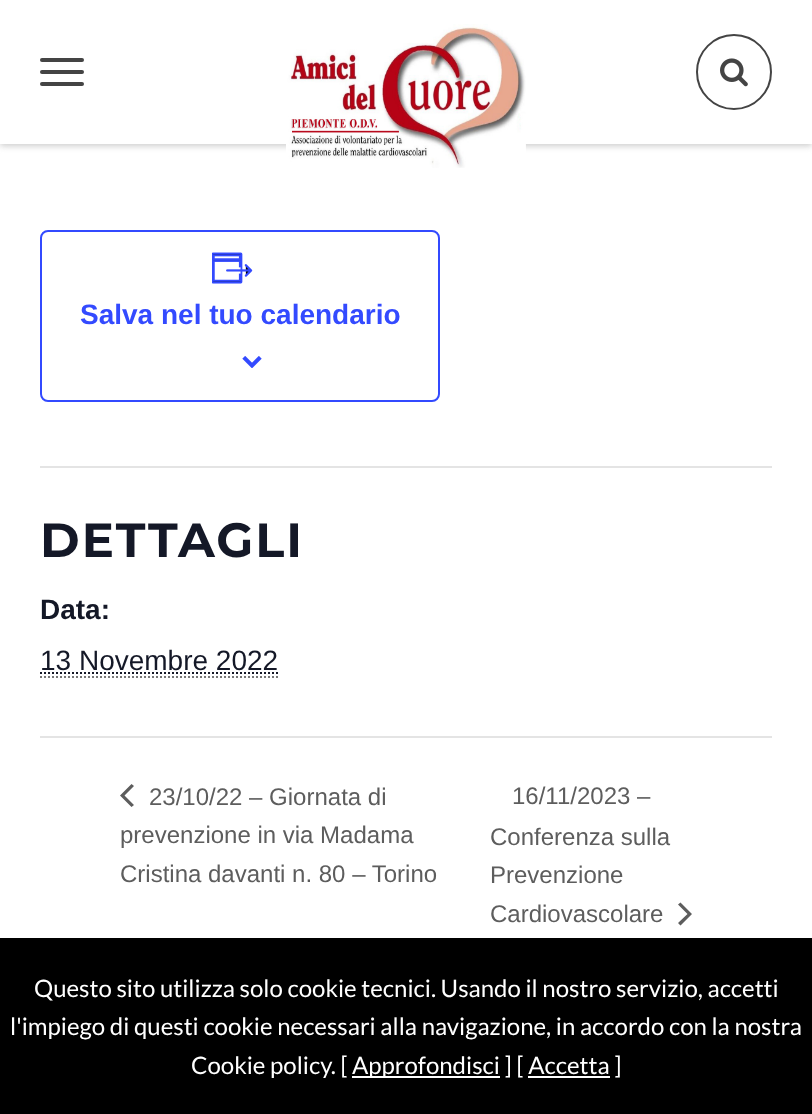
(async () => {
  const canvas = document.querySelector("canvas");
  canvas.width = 812;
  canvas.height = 1114;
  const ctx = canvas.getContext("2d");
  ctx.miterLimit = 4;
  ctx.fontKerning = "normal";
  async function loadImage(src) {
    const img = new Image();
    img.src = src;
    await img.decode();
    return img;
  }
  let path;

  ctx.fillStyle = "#ffffff";
  ctx.fillRect(0, 0, 812, 1114);
  ctx.fillStyle = "#cccccc";
  ctx.filter = "blur(3px)";
  ctx.beginPath();
  ctx.rect(0, 2, 812, 144);
  ctx.fill();
  ctx.filter = "none";
  ctx.fillStyle = "#ffffff";
  ctx.fillRect(0, 0, 812, 144);
  ctx.fillStyle = "#444444";
  ctx.beginPath();
  ctx.roundRect(40, 58, 44, 4, 2);
  ctx.fill();
  ctx.beginPath();
  ctx.roundRect(40, 70, 44, 4, 2);
  ctx.fill();
  ctx.beginPath();
  ctx.roundRect(40, 82, 44, 4, 2);
  ctx.fill();
  ctx.drawImage(await loadImage("img/1.png"), 286, 24, 240, 144);
  ctx.beginPath();
  ctx.arc(734, 72, 37, 0, Math.PI * 2);
  ctx.strokeStyle = "#444444";
  ctx.lineWidth = 2;
  ctx.stroke();
  ctx.drawImage(await loadImage("img/2.png"), 720, 58, 28, 29);
  ctx.beginPath();
  ctx.roundRect(41, 231, 398, 170, 7);
  ctx.strokeStyle = "#334aff";
  ctx.stroke();
  ctx.drawImage(await loadImage("img/3.png"), 212, 252, 41, 32);
  ctx.drawImage(await loadImage("img/4.png"), 242, 356, 20, 12);
  ctx.fillStyle = "#e4e4e4";
  ctx.fillRect(40, 466, 732, 2);
  path = new Path2D("M40 677H278");
  ctx.strokeStyle = "#777777";
  ctx.setLineDash([2, 2]);
  ctx.stroke(path);
  path = new Path2D("M40 673H278");
  ctx.strokeStyle = "#141827";
  ctx.stroke(path);
  ctx.fillRect(40, 736, 732, 2);
  ctx.fillStyle = "#5d5d5d";
  path = new Path2D("M134 805L131.5 807L120 795.5L131.5 784L134 786L124.5 795.5Z");
  ctx.fill(path);
  path = new Path2D("M678 904.5L680.5 902.5L692 914L680.5 925.5L678 923L687.5 914Z");
  ctx.fill(path);
  for (const [x, y, w, h, color] of [
    [0, 938, 812, 176, "#000000"],
    [352, 1076, 148, 2, "#ffffff"],
    [528, 1076, 82, 2, "#ffffff"],
  ]) {
    ctx.fillStyle = color;
    ctx.fillRect(x, y, w, h);
  }
  ctx.font = "bold 28px Liberation Sans";
  ctx.fillStyle = "#334aff";
  ctx.fillText("Salva nel tuo calendario", 80, 324);
  ctx.letterSpacing = "2px";
  ctx.font = "bold 48px Montserrat";
  ctx.fillStyle = "#141827";
  ctx.fillText("DETTAGLI", 40, 557);
  ctx.letterSpacing = "0px";
  ctx.font = "bold 28px Liberation Sans";
  ctx.fillText("Data:", 40, 619);
  ctx.font = "28px Liberation Sans";
  ctx.fillText("13 Novembre 2022", 40, 670);
  ctx.font = "24px Liberation Sans";
  ctx.fillStyle = "#5d5d5d";
  for (const [text, x, y] of [
    ["23/10/22 – Giornata di", 149, 805],
    ["prevenzione in via Madama", 120, 843],
    ["Cristina davanti n. 80 – Torino", 120, 882],
    ["16/11/2023 –", 512, 804],
    ["Conferenza sulla", 490, 845],
    ["Prevenzione", 490, 883],
    ["Cardiovascolare", 490, 922],
  ]) {
    ctx.fillText(text, x, y);
  }
  ctx.font = "24px Lato";
  ctx.fillStyle = "#ffffff";
  for (const [text, x, y] of [
    ["Questo sito utilizza solo cookie tecnici. Usando il nostro servizio, accetti", 34, 997],
    ["l'impiego di questi cookie necessari alla navigazione, in accordo con la nostra", 10, 1035],
    ["Cookie policy. [", 191, 1074],
    ["Approfondisci ] [ Accetta ]", 352, 1074],
  ]) {
    ctx.fillText(text, x, y);
  }
})();
